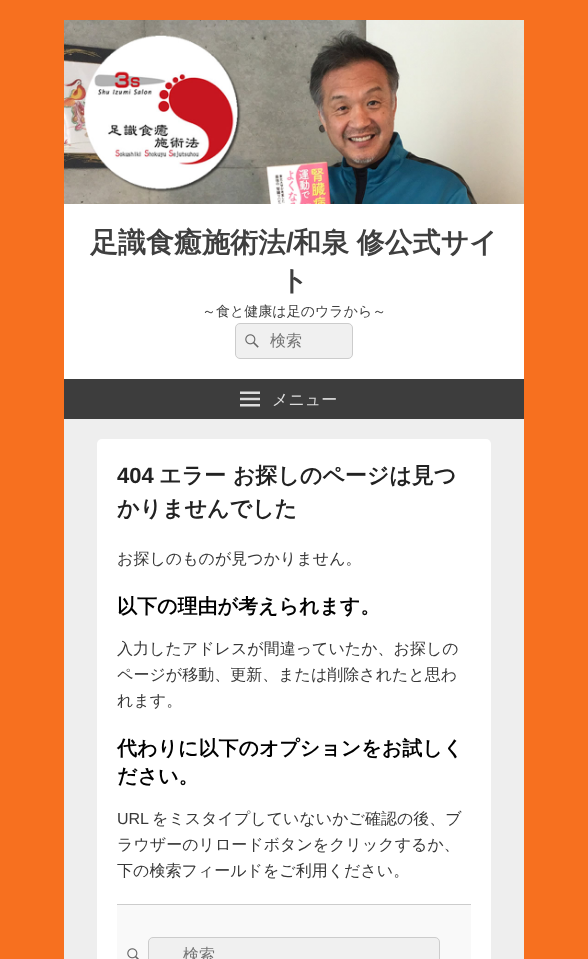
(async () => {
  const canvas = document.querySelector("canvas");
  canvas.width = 588;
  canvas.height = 959;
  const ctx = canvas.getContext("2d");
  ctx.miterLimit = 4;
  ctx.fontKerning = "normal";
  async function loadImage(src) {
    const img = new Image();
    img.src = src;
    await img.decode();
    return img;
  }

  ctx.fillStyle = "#f7701f";
  ctx.fillRect(0, 0, 588, 959);
  ctx.fillStyle = "#eeeeee";
  ctx.fillRect(64, 419, 460, 540);
  ctx.fillStyle = "#ffffff";
  ctx.fillRect(64, 204, 460, 175);
  ctx.drawImage(await loadImage("img/1.png"), 64, 20, 460, 184);
  ctx.fillStyle = "#f0f0f0";
  ctx.beginPath();
  ctx.roundRect(235.5, 323.5, 117, 35, 4.5);
  ctx.fill();
  ctx.strokeStyle = "#cccccc";
  ctx.stroke();
  ctx.drawImage(await loadImage("img/2.png"), 245, 334, 14, 14);
  ctx.fillStyle = "#3d3d3d";
  ctx.fillRect(64, 379, 460, 40);
  ctx.drawImage(await loadImage("img/3.png"), 240, 391, 20, 16);
  ctx.fillStyle = "#ffffff";
  ctx.beginPath();
  ctx.roundRect(97, 439, 394, 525, 5);
  ctx.fill();
  ctx.fillStyle = "#f9f9f9";
  ctx.fillRect(117, 905, 354, 54);
  ctx.fillStyle = "#cccccc";
  ctx.fillRect(117, 904, 354, 1);
  ctx.drawImage(await loadImage("img/4.png"), 127, 948, 12, 11);
  ctx.fillStyle = "#f0f0f0";
  ctx.beginPath();
  ctx.roundRect(148.5, 937.5, 291, 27, 4.5);
  ctx.fill();
  ctx.stroke();
  ctx.font = "bold 28px WenQuanYi Zen Hei";
  ctx.fillStyle = "#3f3f3f";
  ctx.fillText("足識食癒施術法", 90, 252);
  ctx.font = "bold 28px Liberation Sans";
  ctx.fillText("/", 286, 252);
  ctx.wordSpacing = "-1px";
  ctx.font = "bold 28px WenQuanYi Zen Hei";
  ctx.fillText("和泉 修公式サイ", 293, 252);
  ctx.wordSpacing = "0px";
  ctx.fillText("ト", 280, 290);
  ctx.font = "500 14px WenQuanYi Zen Hei";
  ctx.fillText("～食と健康は足のウラから～", 202, 316);
  ctx.font = "500 16px WenQuanYi Zen Hei";
  ctx.fillStyle = "#757575";
  ctx.fillText("検索", 270, 346);
  ctx.fillStyle = "#dddddd";
  ctx.fillText("メニュー", 272, 405);
  ctx.font = "bold 22px Liberation Sans";
  ctx.fillStyle = "#222222";
  ctx.fillText("404", 117, 483);
  ctx.font = "bold 22px WenQuanYi Zen Hei";
  ctx.fillText("エラー お探しのページは見つ", 159, 483);
  ctx.fillText("かりませんでした", 117, 516);
  ctx.font = "500 16px WenQuanYi Zen Hei";
  ctx.fillStyle = "#373737";
  ctx.fillText("お探しのものが見つかりません。", 117, 564);
  ctx.font = "bold 20px WenQuanYi Zen Hei";
  ctx.fillStyle = "#000000";
  ctx.fillText("以下の理由が考えられます。", 117, 613);
  ctx.font = "500 16px WenQuanYi Zen Hei";
  ctx.fillStyle = "#373737";
  for (const [text, x, y] of [
    ["入力したアドレスが間違っていたか、お探しの", 117, 654],
    ["ページが移動、更新、または削除されたと思わ", 117, 680],
    ["れます。", 117, 706],
  ]) {
    ctx.fillText(text, x, y);
  }
  ctx.font = "bold 20px WenQuanYi Zen Hei";
  ctx.fillStyle = "#000000";
  ctx.fillText("代わりに以下のオプションをお試しく", 117, 755);
  ctx.fillText("ださい。", 117, 783);
  ctx.font = "16px Liberation Sans";
  ctx.fillStyle = "#373737";
  ctx.fillText("URL", 117, 824);
  ctx.font = "500 16px WenQuanYi Zen Hei";
  for (const [text, x, y] of [
    ["をミスタイプしていないかご確認の後、ブ", 152, 824],
    ["ラウザーのリロードボタンをクリックするか、", 117, 850],
    ["下の検索フィールドをご利用ください。", 117, 876],
  ]) {
    ctx.fillText(text, x, y);
  }
  ctx.fillStyle = "#757575";
  ctx.fillText("検索", 183, 960);
})();
